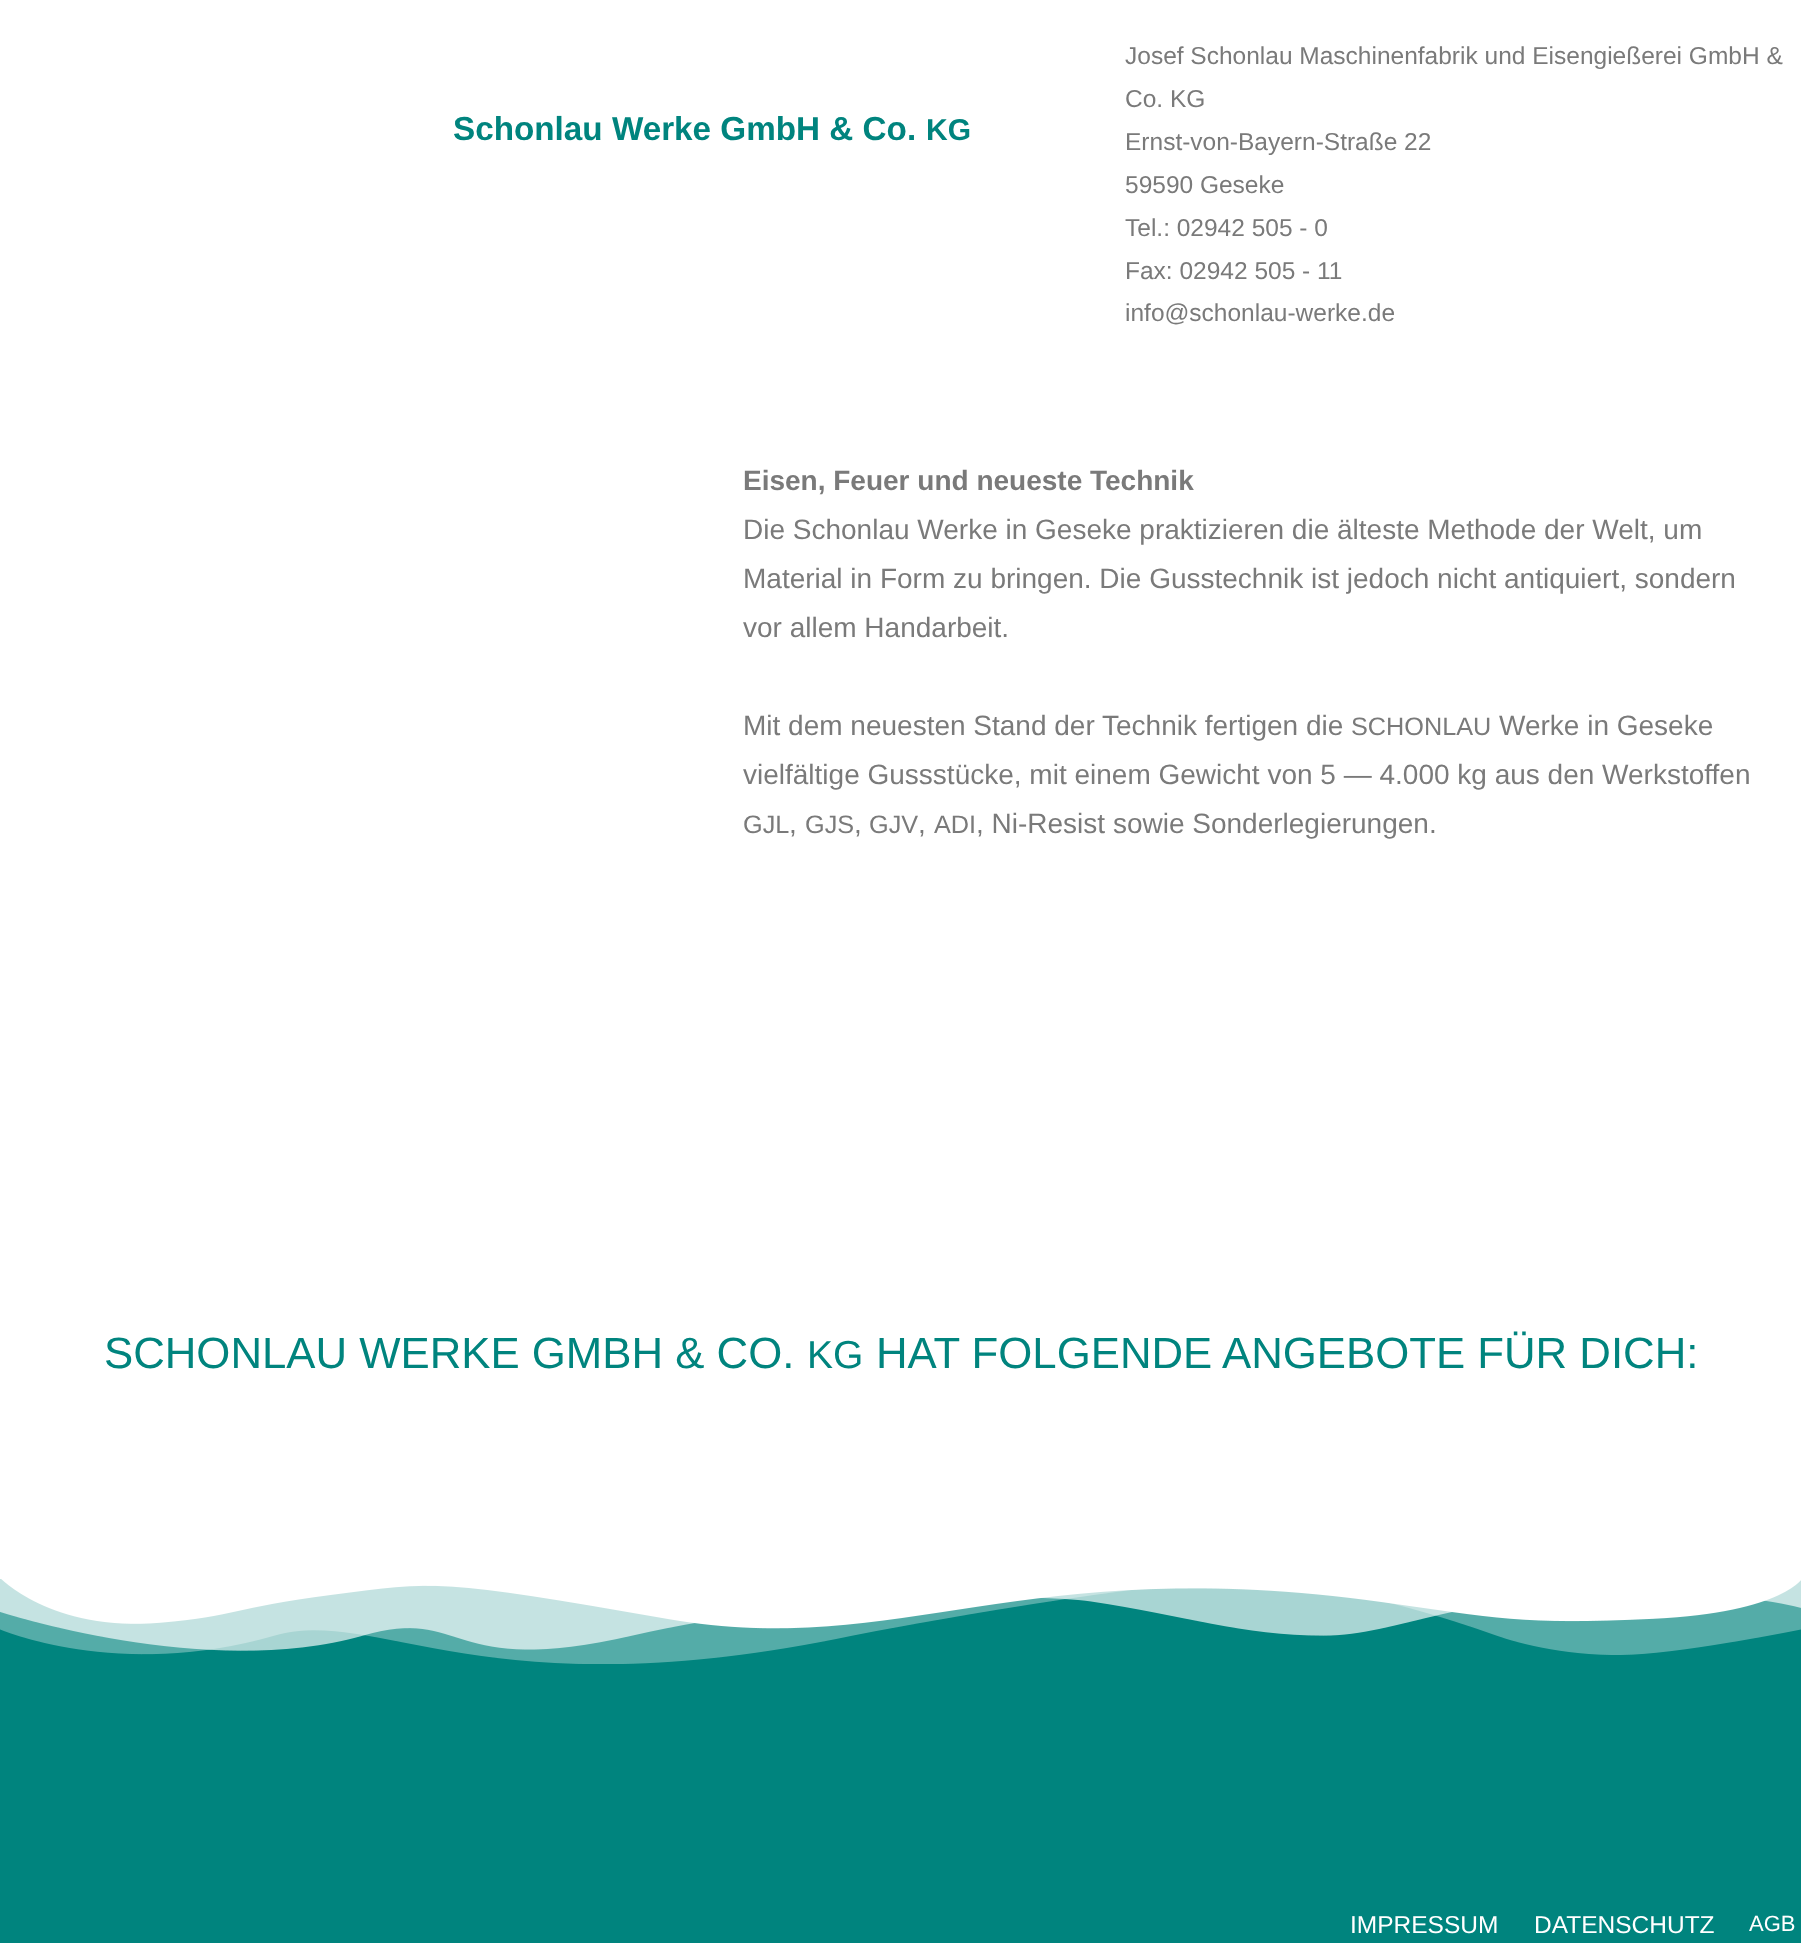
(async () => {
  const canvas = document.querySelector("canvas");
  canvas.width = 1801;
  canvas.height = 1943;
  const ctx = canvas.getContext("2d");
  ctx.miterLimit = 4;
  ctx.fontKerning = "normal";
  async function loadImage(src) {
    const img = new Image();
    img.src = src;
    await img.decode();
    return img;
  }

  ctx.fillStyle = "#ffffff";
  ctx.fillRect(0, 0, 1801, 1943);
  ctx.fillStyle = "#00847e";
  ctx.fillRect(0, 1579, 1801, 364);
  ctx.drawImage(await loadImage("img/1.png"), 0, 1579, 1801, 85);
  ctx.font = "bold 33.25px Liberation Sans";
  ctx.fillText("Schonlau Werke GmbH & Co.", 453, 140);
  ctx.font = "bold 30px Liberation Sans";
  ctx.fillText("KG", 926, 140);
  ctx.font = "24.5px Liberation Sans";
  ctx.fillStyle = "#7a7a7a";
  for (const [text, x, y] of [
    ["Josef Schonlau Maschinenfabrik und Eisengießerei GmbH &", 1125, 64],
    ["Co. KG", 1125, 107],
    ["Ernst-von-Bayern-Straße 22", 1125, 150],
    ["59590 Geseke", 1125, 193],
    ["Tel.: 02942 505 - 0", 1125, 236],
    ["Fax: 02942 505 - 11", 1125, 279],
    ["info@schonlau-werke.de", 1125, 321],
  ]) {
    ctx.fillText(text, x, y);
  }
  ctx.font = "bold 28px Liberation Sans";
  ctx.fillText("Eisen, Feuer und neueste Technik", 743, 490);
  ctx.font = "28px Liberation Sans";
  for (const [text, x, y] of [
    ["Die Schonlau Werke in Geseke praktizieren die älteste Methode der Welt, um", 743, 539],
    ["Material in Form zu bringen. Die Gusstechnik ist jedoch nicht antiquiert, sondern", 743, 588],
    ["vor allem Handarbeit.", 743, 637],
    ["Mit dem neuesten Stand der Technik fertigen die", 743, 735],
  ]) {
    ctx.fillText(text, x, y);
  }
  ctx.font = "25.25px Liberation Sans";
  ctx.fillText("SCHONLAU", 1351, 735);
  ctx.font = "28px Liberation Sans";
  ctx.fillText("Werke in Geseke", 1499, 735);
  ctx.fillText("vielfältige Gussstücke, mit einem Gewicht von 5 — 4.000 kg aus den Werkstoffen", 743, 784);
  ctx.font = "25.25px Liberation Sans";
  ctx.fillText("GJL", 743, 833);
  ctx.font = "28px Liberation Sans";
  ctx.fillText(",", 789, 833);
  ctx.font = "25.25px Liberation Sans";
  ctx.fillText("GJS", 805, 833);
  ctx.font = "28px Liberation Sans";
  ctx.fillText(",", 854, 833);
  ctx.font = "25.25px Liberation Sans";
  ctx.fillText("GJV", 869, 833);
  ctx.font = "28px Liberation Sans";
  ctx.fillText(",", 918, 833);
  ctx.font = "25.25px Liberation Sans";
  ctx.fillText("ADI", 934, 833);
  ctx.font = "28px Liberation Sans";
  ctx.fillText(", Ni-Resist sowie Sonderlegierungen.", 976, 833);
  ctx.font = "43.75px Liberation Sans";
  ctx.fillStyle = "#00847e";
  ctx.fillText("SCHONLAU WERKE GMBH & CO.", 104, 1368);
  ctx.font = "39px Liberation Sans";
  ctx.fillText("KG", 807, 1368);
  ctx.font = "43.75px Liberation Sans";
  ctx.fillText("HAT FOLGENDE ANGEBOTE FÜR DICH:", 876, 1368);
  ctx.font = "24.5px Liberation Sans";
  ctx.fillStyle = "#ffffff";
  ctx.fillText("IMPRESSUM", 1350, 1933);
  ctx.fillText("DATENSCHUTZ", 1534, 1933);
  ctx.font = "22px Liberation Sans";
  ctx.fillText("AGB", 1749, 1931);
})();
